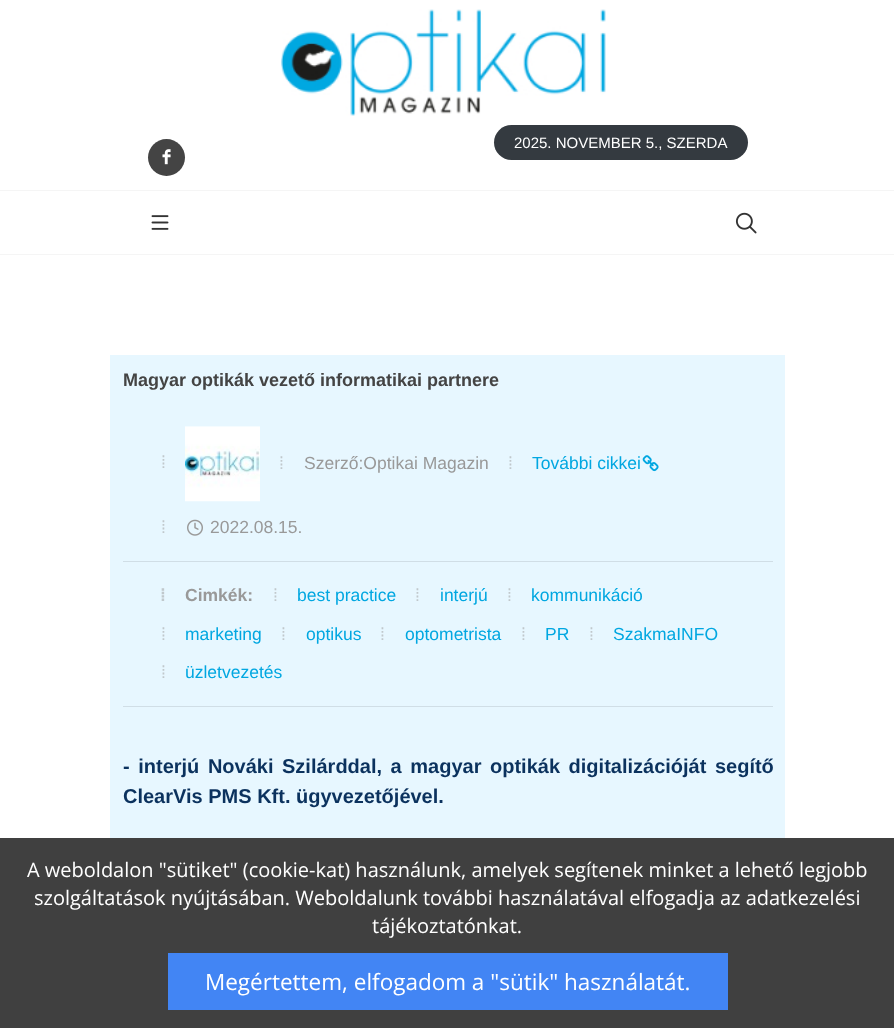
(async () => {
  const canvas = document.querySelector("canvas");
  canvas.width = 894;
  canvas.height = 1028;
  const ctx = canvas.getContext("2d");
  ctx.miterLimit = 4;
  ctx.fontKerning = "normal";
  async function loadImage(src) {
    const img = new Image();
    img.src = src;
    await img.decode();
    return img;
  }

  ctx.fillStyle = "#ffffff";
  ctx.fillRect(0, 0, 894, 1028);
  ctx.fillStyle = "#f5f5f5";
  ctx.fillRect(0, 254, 894, 1);
  ctx.drawImage(await loadImage("img/1.png"), 281, 9, 325, 107);
  ctx.fillStyle = "#444444";
  ctx.beginPath();
  ctx.arc(166.5, 157.5, 18.5, 0, Math.PI * 2);
  ctx.fill();
  ctx.drawImage(await loadImage("img/2.png"), 162, 149, 9, 16);
  ctx.fillStyle = "#343a40";
  ctx.beginPath();
  ctx.roundRect(494, 125, 254, 35, 17.5);
  ctx.fill();
  ctx.fillStyle = "#f5f5f5";
  ctx.fillRect(0, 190, 894, 1);
  ctx.drawImage(await loadImage("img/3.png"), 151, 215, 18, 15);
  ctx.drawImage(await loadImage("img/4.png"), 735, 212, 22, 22);
  ctx.fillStyle = "#e7f7ff";
  ctx.fillRect(110, 355, 675, 483);
  ctx.drawImage(await loadImage("img/5.png"), 185, 426, 75, 76);
  ctx.drawImage(await loadImage("img/6.png"), 642, 455, 17, 17);
  ctx.drawImage(await loadImage("img/7.png"), 187, 519, 16, 17);
  for (const [x, y, w, h, color] of [
    [123, 561, 650, 1, "#d0dee6"],
    [123, 706, 650, 1, "#d0dee6"],
    [0, 838, 894, 190, "#404040"],
    [168, 953, 560, 57, "#4285f4"],
  ]) {
    ctx.fillStyle = color;
    ctx.fillRect(x, y, w, h);
  }
  ctx.font = "15px Liberation Sans";
  ctx.fillStyle = "#ffffff";
  ctx.fillText("2025. NOVEMBER 5., SZERDA", 514, 148);
  ctx.font = "bold 18px Liberation Sans";
  ctx.fillStyle = "#444444";
  ctx.fillText("Magyar optikák vezető informatikai partnere", 123, 386);
  ctx.font = "17.5px Liberation Sans";
  ctx.fillStyle = "#c0c8cc";
  ctx.fillText("⁞", 161, 468);
  ctx.fillText("⁞", 279, 469);
  ctx.fillStyle = "#999999";
  ctx.fillText("Szerző:Optikai Magazin", 304, 469);
  ctx.fillStyle = "#c0c8cc";
  ctx.fillText("⁞", 508, 469);
  ctx.fillStyle = "#01a7e1";
  ctx.fillText("További cikkei", 532, 469);
  ctx.fillStyle = "#c0c8cc";
  ctx.fillText("⁞", 161, 533);
  ctx.fillStyle = "#999999";
  ctx.fillText("2022.08.15.", 210, 533);
  ctx.font = "bold 17.5px Liberation Sans";
  ctx.fillStyle = "#c0c8cc";
  ctx.fillText("⁞", 160, 601);
  ctx.fillStyle = "#999999";
  ctx.fillText("Cimkék:", 185, 601);
  ctx.font = "17.5px Liberation Sans";
  ctx.fillStyle = "#c0c8cc";
  ctx.fillText("⁞", 273, 601);
  ctx.fillStyle = "#01a7e1";
  ctx.fillText("best practice", 297, 601);
  ctx.fillStyle = "#c0c8cc";
  ctx.fillText("⁞", 415, 601);
  ctx.fillStyle = "#01a7e1";
  ctx.fillText("interjú", 440, 601);
  ctx.fillStyle = "#c0c8cc";
  ctx.fillText("⁞", 507, 601);
  ctx.fillStyle = "#01a7e1";
  ctx.fillText("kommunikáció", 531, 601);
  ctx.fillStyle = "#c0c8cc";
  ctx.fillText("⁞", 161, 640);
  ctx.fillStyle = "#01a7e1";
  ctx.fillText("marketing", 185, 640);
  ctx.fillStyle = "#c0c8cc";
  ctx.fillText("⁞", 281, 640);
  ctx.fillStyle = "#01a7e1";
  ctx.fillText("optikus", 306, 640);
  ctx.fillStyle = "#c0c8cc";
  ctx.fillText("⁞", 380, 640);
  ctx.fillStyle = "#01a7e1";
  ctx.fillText("optometrista", 405, 640);
  ctx.fillStyle = "#c0c8cc";
  ctx.fillText("⁞", 521, 640);
  ctx.fillStyle = "#01a7e1";
  ctx.fillText("PR", 545, 640);
  ctx.fillStyle = "#c0c8cc";
  ctx.fillText("⁞", 589, 640);
  ctx.fillStyle = "#01a7e1";
  ctx.fillText("SzakmaINFO", 613, 640);
  ctx.fillStyle = "#c0c8cc";
  ctx.fillText("⁞", 161, 678);
  ctx.fillStyle = "#01a7e1";
  ctx.fillText("üzletvezetés", 185, 678);
  ctx.wordSpacing = "3px";
  ctx.font = "bold 20px Liberation Sans";
  ctx.fillStyle = "#0b325e";
  ctx.fillText("- interjú Nováki Szilárddal, a magyar optikák digitalizációját segítő", 123, 773);
  ctx.wordSpacing = "0px";
  ctx.fillText("ClearVis PMS Kft. ügyvezetőjével.", 123, 803);
  ctx.font = "20px Open Sans";
  ctx.fillStyle = "#ffffff";
  for (const [text, x, y] of [
    ["A weboldalon \"sütiket\" (cookie-kat) használunk, amelyek segítenek minket a lehető legjobb", 27, 877],
    ["szolgáltatások nyújtásában. Weboldalunk további használatával elfogadja az adatkezelési", 34, 905],
    ["tájékoztatónkat.", 372, 933],
  ]) {
    ctx.fillText(text, x, y);
  }
  ctx.font = "22.5px Open Sans";
  ctx.fillText("Megértettem, elfogadom a \"sütik\" használatát.", 205, 990);
})();
